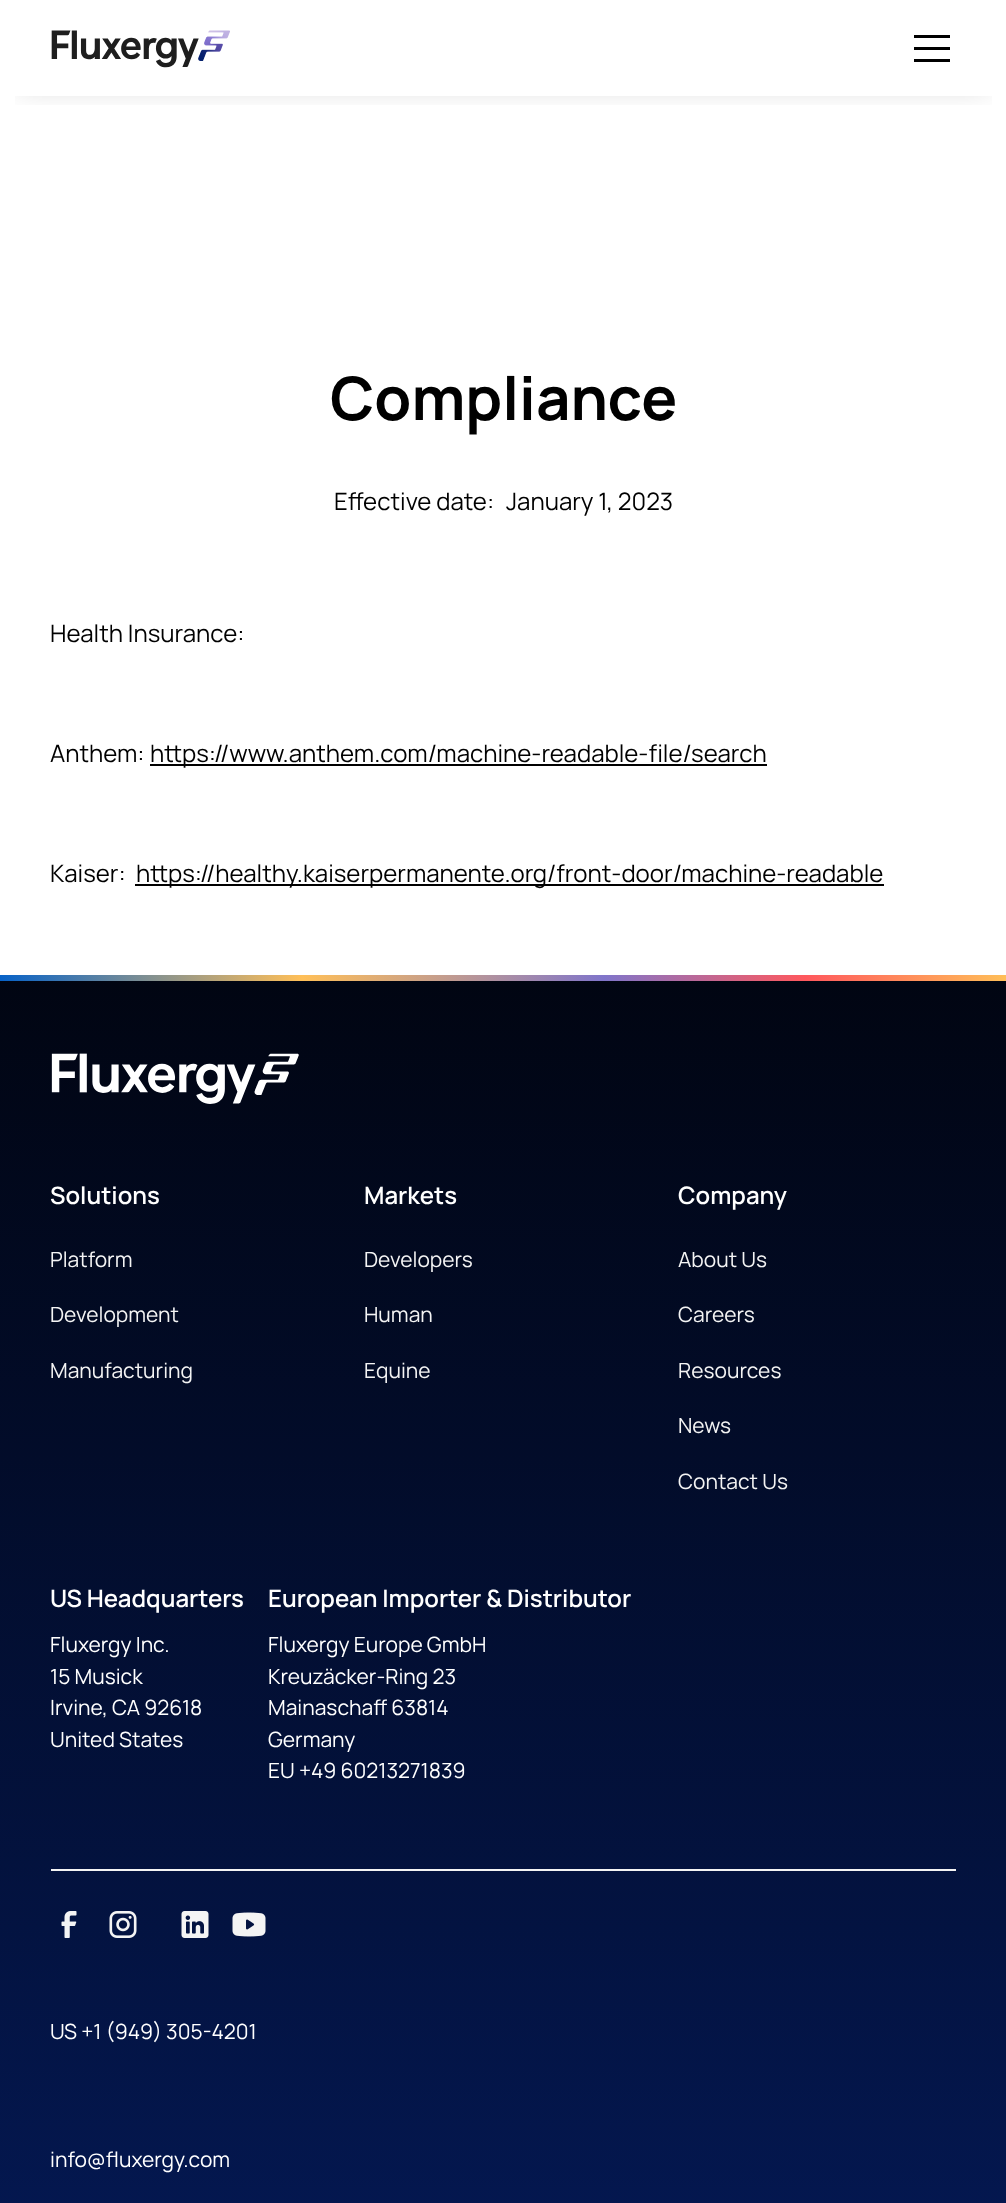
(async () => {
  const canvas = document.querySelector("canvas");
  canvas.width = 1006;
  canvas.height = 2203;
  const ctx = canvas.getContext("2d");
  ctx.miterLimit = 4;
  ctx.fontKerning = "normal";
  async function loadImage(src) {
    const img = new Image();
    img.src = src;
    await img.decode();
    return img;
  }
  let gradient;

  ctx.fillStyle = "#ffffff";
  ctx.fillRect(0, 0, 1006, 2203);
  ctx.save();
  ctx.beginPath();
  ctx.rect(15, 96, 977, 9);
  ctx.clip();
  ctx.fillStyle = "rgba(0, 0, 0, 0.2)";
  ctx.filter = "blur(15px)";
  ctx.beginPath();
  ctx.rect(18, 26, 971, 60);
  ctx.fill();
  ctx.filter = "none";
  ctx.restore();
  ctx.drawImage(await loadImage("img/1.png"), 51, 30, 179, 38);
  for (const [x, y, w, h, color] of [
    [914, 35, 36, 3, "#000000"],
    [914, 47, 36, 3, "#000000"],
    [914, 59, 36, 3, "#000000"],
    [150, 764, 617, 2, "#000000"],
    [135, 884, 749, 2, "#000000"],
  ]) {
    ctx.fillStyle = color;
    ctx.fillRect(x, y, w, h);
  }
  gradient = ctx.createLinearGradient(503, 975, 503, 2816);
  gradient.addColorStop(0, "#010512");
  gradient.addColorStop(1, "#05206d");
  ctx.fillStyle = gradient;
  ctx.fillRect(0, 981, 1006, 1222);
  gradient = ctx.createLinearGradient(0, 978, 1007, 978);
  gradient.addColorStop(0, "#0762c8");
  gradient.addColorStop(0.3, "#ffbf58");
  gradient.addColorStop(0.6, "#8075ca");
  gradient.addColorStop(0.8, "#ff585d");
  gradient.addColorStop(1, "#ffbf58");
  ctx.fillStyle = gradient;
  ctx.fillRect(0, 975, 1006, 6);
  ctx.drawImage(await loadImage("img/2.png"), 51, 1053, 248, 51);
  ctx.fillStyle = "#f4f4f4";
  ctx.fillRect(51, 1869, 905, 2);
  ctx.drawImage(await loadImage("img/3.png"), 61, 1911, 16, 27);
  ctx.drawImage(await loadImage("img/4.png"), 109, 1911, 28, 27);
  ctx.drawImage(await loadImage("img/5.png"), 181, 1911, 28, 27);
  ctx.drawImage(await loadImage("img/6.png"), 232, 1912, 34, 25);
  ctx.font = "bold 60px Manrope";
  ctx.fillStyle = "#000000";
  ctx.fillText("Compliance", 330, 420);
  ctx.font = "24px Manrope";
  for (const [text, x, y] of [
    ["Effective date:", 334, 510],
    ["January 1, 2023", 506, 510],
    ["Health Insurance:", 50, 642],
    ["Anthem:", 50, 762],
    ["https://www.anthem.com/machine-readable-file/search", 150, 762],
    ["Kaiser:", 50, 882],
    ["https://healthy.kaiserpermanente.org/front-door/machine-readable", 136, 882],
  ]) {
    ctx.fillText(text, x, y);
  }
  ctx.font = "600 24px Manrope";
  ctx.fillStyle = "#ffffff";
  ctx.fillText("Solutions", 50, 1204);
  ctx.font = "21px Manrope";
  ctx.fillStyle = "#f4f4f4";
  for (const [text, x, y] of [
    ["Platform", 50, 1267],
    ["Development", 50, 1322],
    ["Manufacturing", 50, 1378],
  ]) {
    ctx.fillText(text, x, y);
  }
  ctx.font = "600 24px Manrope";
  ctx.fillStyle = "#ffffff";
  ctx.fillText("Markets", 364, 1204);
  ctx.font = "21px Manrope";
  ctx.fillStyle = "#f4f4f4";
  for (const [text, x, y] of [
    ["Developers", 364, 1267],
    ["Human", 364, 1322],
    ["Equine", 364, 1378],
  ]) {
    ctx.fillText(text, x, y);
  }
  ctx.font = "600 24px Manrope";
  ctx.fillStyle = "#ffffff";
  ctx.fillText("Company", 678, 1204);
  ctx.font = "21px Manrope";
  ctx.fillStyle = "#f4f4f4";
  for (const [text, x, y] of [
    ["About Us", 678, 1267],
    ["Careers", 678, 1322],
    ["Resources", 678, 1378],
    ["News", 678, 1433],
    ["Contact Us", 678, 1489],
  ]) {
    ctx.fillText(text, x, y);
  }
  ctx.font = "600 24px Manrope";
  ctx.fillStyle = "#ffffff";
  ctx.fillText("US Headquarters", 50, 1607);
  ctx.font = "21px Manrope";
  for (const [text, x, y] of [
    ["Fluxergy Inc.", 50, 1652],
    ["15 Musick", 50, 1684],
    ["Irvine, CA 92618", 50, 1715],
    ["United States", 50, 1747],
  ]) {
    ctx.fillText(text, x, y);
  }
  ctx.font = "600 24px Manrope";
  ctx.fillText("European Importer & Distributor", 268, 1607);
  ctx.font = "21px Manrope";
  for (const [text, x, y] of [
    ["Fluxergy Europe GmbH", 268, 1652],
    ["Kreuzäcker-Ring 23", 268, 1684],
    ["Mainaschaff 63814", 268, 1715],
    ["Germany", 268, 1747],
    ["EU +49 60213271839", 268, 1778],
    ["US +1 (949) 305-4201", 50, 2039],
    ["info@fluxergy.com", 50, 2167],
  ]) {
    ctx.fillText(text, x, y);
  }
})();
